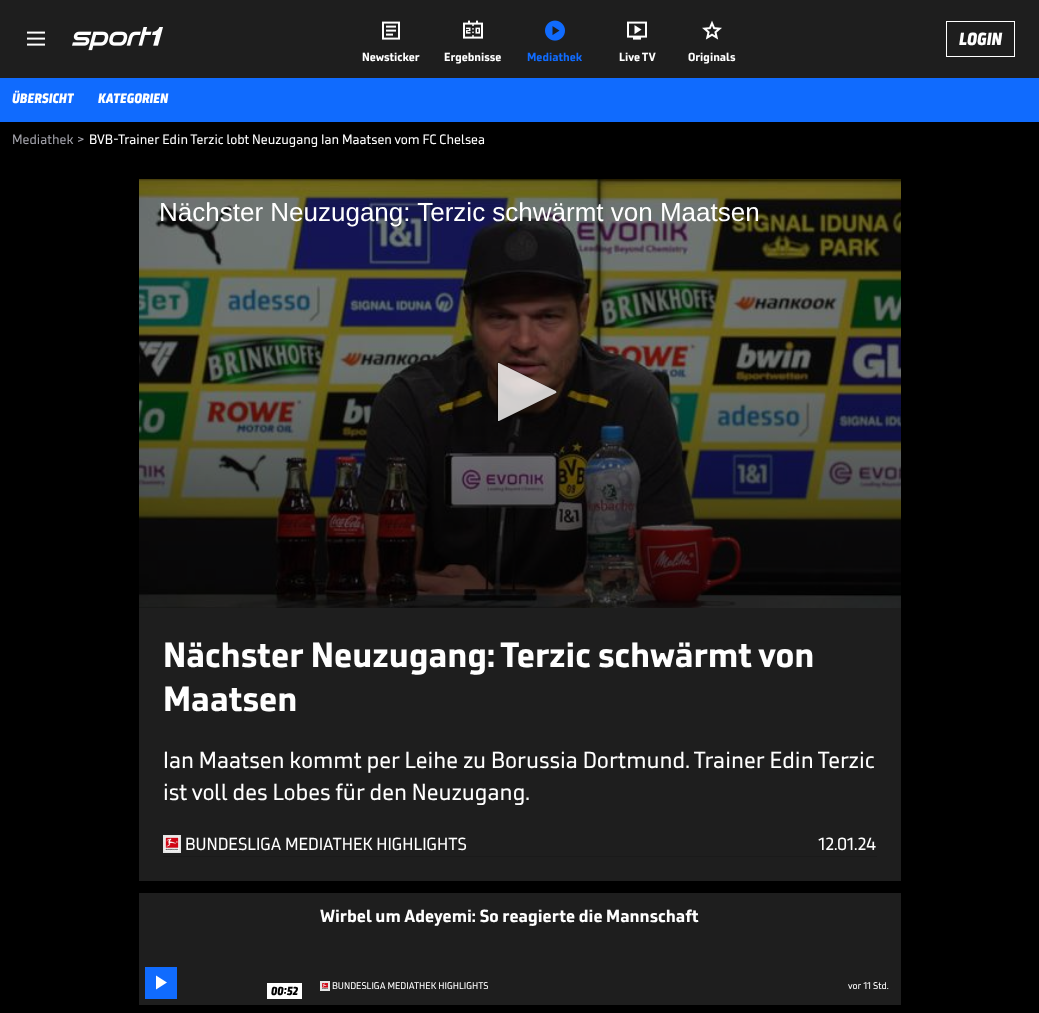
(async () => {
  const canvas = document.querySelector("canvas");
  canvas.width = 1039;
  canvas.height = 1013;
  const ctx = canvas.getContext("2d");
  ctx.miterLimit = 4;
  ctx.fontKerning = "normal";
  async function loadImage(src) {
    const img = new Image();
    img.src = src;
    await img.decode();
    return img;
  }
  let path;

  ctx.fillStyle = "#000000";
  ctx.fillRect(0, 0, 1039, 1013);
  ctx.fillStyle = "#1e1e1e";
  ctx.fillRect(0, 0, 1039, 78);
  ctx.drawImage(await loadImage("img/1.png"), 27, 31, 18, 15);
  ctx.drawImage(await loadImage("img/2.png"), 72, 27, 91, 24);
  ctx.strokeStyle = "#ffffff";
  ctx.strokeRect(946.5, 21.5, 68, 35);
  ctx.drawImage(await loadImage("img/3.png"), 382, 21, 18, 19);
  ctx.drawImage(await loadImage("img/4.png"), 463, 20, 20, 19);
  ctx.drawImage(await loadImage("img/5.png"), 545, 20, 20, 21);
  ctx.drawImage(await loadImage("img/6.png"), 627, 21, 20, 19);
  ctx.drawImage(await loadImage("img/7.png"), 702, 20, 20, 20);
  ctx.fillStyle = "#106bfe";
  ctx.fillRect(0, 78, 1039, 44);
  ctx.drawImage(await loadImage("img/8.png"), 139, 179, 762, 429);
  path = new Path2D("M499 421H497.5V363.5L498.5 362.5L556 391.5C556.5 391.5 556.5 392 556 392.5Z");
  ctx.strokeStyle = "rgba(0, 0, 0, 0.3)";
  ctx.lineWidth = 1.6;
  ctx.stroke(path);
  ctx.fillStyle = "rgba(255, 255, 255, 0.8)";
  path = new Path2D("M499 421H498V363H499L556 391C556 392 557 392 556 393Z");
  ctx.fill(path);
  for (const [x, y, w, h, color] of [
    [139, 608, 762, 273, "#1e1e1e"],
    [163, 856, 714, 1, "#1a1a1a"],
    [163, 835, 18, 18, "#e5e5e5"],
  ]) {
    ctx.fillStyle = color;
    ctx.fillRect(x, y, w, h);
  }
  ctx.drawImage(await loadImage("img/9.png"), 164, 836, 16, 16);
  ctx.fillStyle = "#1e1e1e";
  ctx.fillRect(139, 893, 762, 112);
  ctx.fillStyle = "#e5e5e5";
  ctx.fillRect(320, 981, 10, 10);
  ctx.drawImage(await loadImage("img/10.png"), 322, 983, 6, 6);
  ctx.fillStyle = "#106bfe";
  ctx.fillRect(145, 967, 32, 32);
  ctx.fillStyle = "#ffffff";
  path = new Path2D("M156 989.5V975.5L167 982.5Z");
  ctx.fill(path);
  ctx.fillRect(267, 983, 35, 16);
  ctx.font = "italic 900 18px 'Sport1'";
  ctx.fillText("LOGIN", 959, 45);
  ctx.font = "bold 12px 'Sport1'";
  ctx.fillText("Newsticker", 362, 61);
  ctx.fillText("Ergebnisse", 444, 61);
  ctx.fillStyle = "#106bfe";
  ctx.fillText("Mediathek", 527, 61);
  ctx.fillStyle = "#ffffff";
  ctx.fillText("Live TV", 619, 61);
  ctx.fillText("Originals", 688, 61);
  ctx.save();
  ctx.beginPath();
  ctx.rect(12, 90, 62, 18);
  ctx.clip();
  ctx.font = "italic 900 14px 'Sport1'";
  ctx.fillText("ÜBERSICHT", 12, 103);
  ctx.restore();
  ctx.font = "italic 900 14px 'Sport1'";
  ctx.fillText("KATEGORIEN", 98, 103);
  ctx.font = "14px 'Sport1'";
  ctx.fillStyle = "#a1a1a9";
  ctx.fillText("Mediathek", 12, 144);
  ctx.fillText(">", 77, 144);
  ctx.fillStyle = "#ffffff";
  ctx.fillText("BVB-Trainer Edin Terzic lobt Neuzugang Ian Maatsen vom FC Chelsea", 89, 144);
  ctx.font = "26px Liberation Sans";
  ctx.fillText("Nächster Neuzugang: Terzic schwärmt von Maatsen", 159, 221);
  ctx.font = "bold 36px 'Sport1'";
  ctx.fillText("Nächster Neuzugang: Terzic schwärmt von", 163, 667);
  ctx.fillText("Maatsen", 163, 711);
  ctx.font = "24px 'Sport1'";
  ctx.fillText("Ian Maatsen kommt per Leihe zu Borussia Dortmund. Trainer Edin Terzic", 163, 768);
  ctx.fillText("ist voll des Lobes für den Neuzugang.", 163, 800);
  ctx.font = "18px 'Sport1'";
  ctx.fillText("BUNDESLIGA MEDIATHEK HIGHLIGHTS", 185, 850);
  ctx.fillText("12.01.24", 818, 850);
  ctx.font = "bold 18px 'Sport1'";
  ctx.fillText("Wirbel um Adeyemi: So reagierte die Mannschaft", 320, 922);
  ctx.font = "10px 'Sport1'";
  ctx.fillText("BUNDESLIGA MEDIATHEK HIGHLIGHTS", 332, 989);
  ctx.fillText("vor 11 Std.", 848, 989);
  ctx.font = "italic 900 12px 'Sport1'";
  ctx.fillStyle = "#000000";
  ctx.fillText("00:52", 271, 995);
})();
